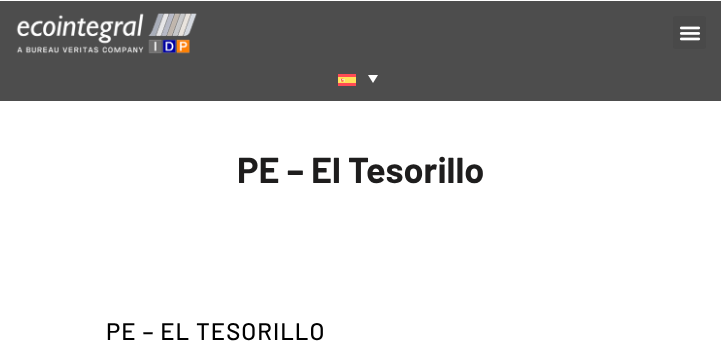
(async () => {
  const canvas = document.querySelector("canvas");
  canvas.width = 721;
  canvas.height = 353;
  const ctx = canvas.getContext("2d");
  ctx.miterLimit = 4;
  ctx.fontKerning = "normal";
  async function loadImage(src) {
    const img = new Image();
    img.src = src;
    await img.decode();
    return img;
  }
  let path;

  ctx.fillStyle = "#ffffff";
  ctx.fillRect(0, 0, 721, 353);
  ctx.fillStyle = "#4d4d4d";
  ctx.fillRect(0, 1, 721, 100);
  ctx.drawImage(await loadImage("img/1.png"), 16, 13, 181, 41);
  ctx.fillStyle = "#494949";
  ctx.beginPath();
  ctx.roundRect(673, 16, 33, 33, 3);
  ctx.fill();
  ctx.drawImage(await loadImage("img/2.png"), 679, 26, 22, 15);
  ctx.drawImage(await loadImage("img/3.png"), 338, 74, 18, 12);
  ctx.fillStyle = "#ffffff";
  path = new Path2D("M368 75H378L373 83Z");
  ctx.fill(path);
  ctx.font = "bold 36px Barlow";
  ctx.fillStyle = "#1e1d1d";
  ctx.fillText("PE – El Tesorillo", 237, 183);
  ctx.letterSpacing = "1px";
  ctx.font = "500 24px Barlow";
  ctx.fillStyle = "#000000";
  ctx.fillText("PE – EL TESORILLO", 106, 340);
})();
